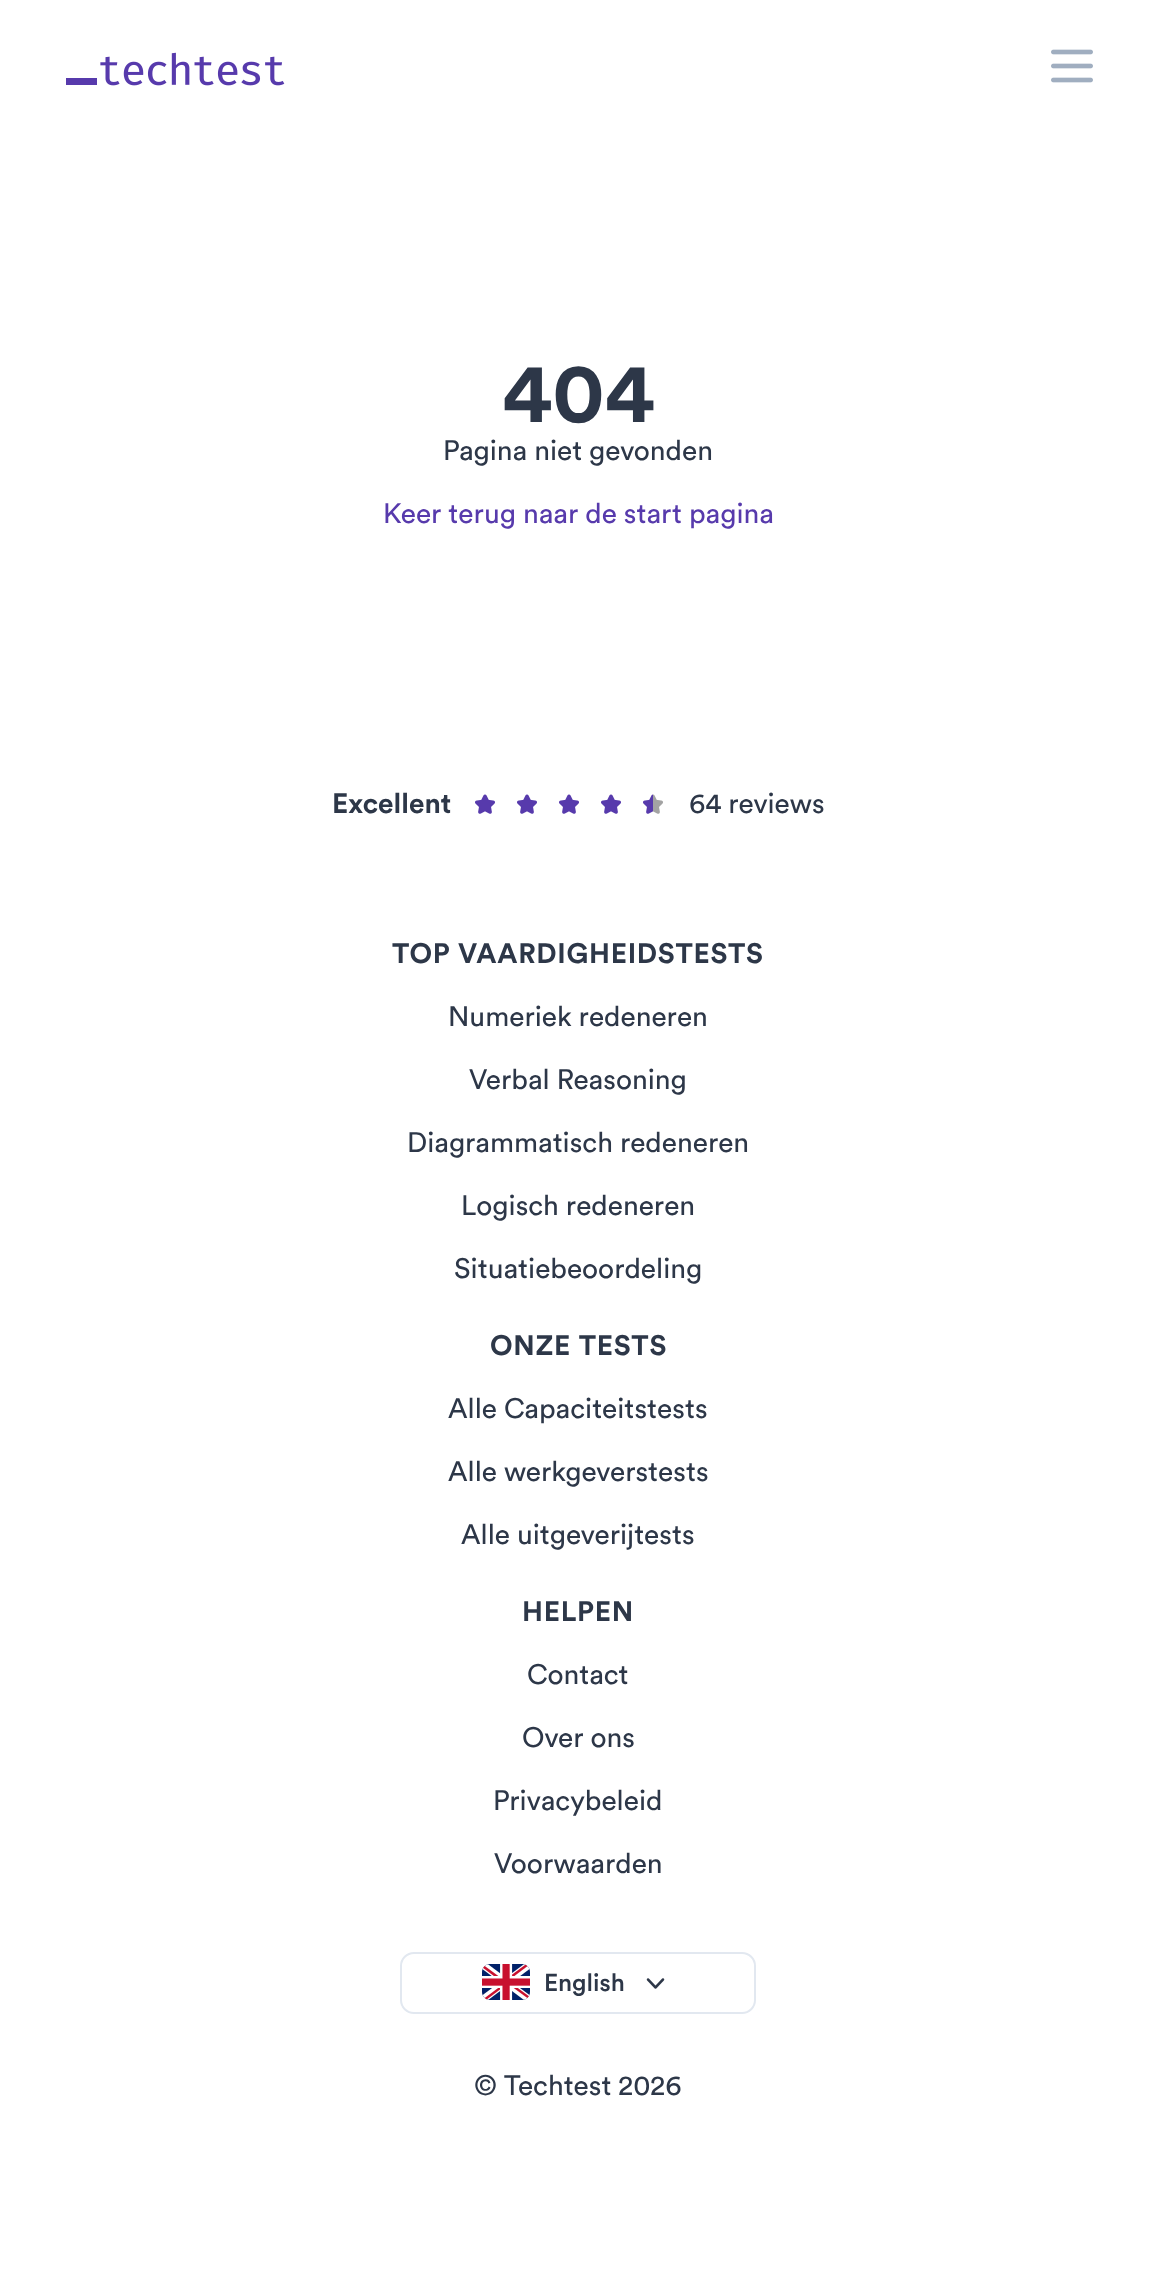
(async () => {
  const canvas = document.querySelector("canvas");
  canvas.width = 1156;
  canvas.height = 2272;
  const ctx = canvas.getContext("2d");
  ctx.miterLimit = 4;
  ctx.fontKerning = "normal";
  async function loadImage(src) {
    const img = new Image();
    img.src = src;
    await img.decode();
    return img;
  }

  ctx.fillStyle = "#ffffff";
  ctx.fillRect(0, 0, 1156, 2272);
  ctx.drawImage(await loadImage("img/1.png"), 66, 52, 219, 34);
  ctx.drawImage(await loadImage("img/2.png"), 1051, 49, 42, 34);
  ctx.drawImage(await loadImage("img/3.png"), 475, 794, 20, 20);
  ctx.drawImage(await loadImage("img/3.png"), 517, 794, 20, 20);
  ctx.drawImage(await loadImage("img/3.png"), 559, 794, 20, 20);
  ctx.drawImage(await loadImage("img/3.png"), 601, 794, 20, 20);
  ctx.drawImage(await loadImage("img/4.png"), 643, 794, 20, 20);
  ctx.beginPath();
  ctx.roundRect(401, 1953, 354, 60, 13);
  ctx.strokeStyle = "#e2e8f0";
  ctx.lineWidth = 2;
  ctx.stroke();
  ctx.drawImage(await loadImage("img/5.png"), 482, 1964, 48, 36);
  ctx.drawImage(await loadImage("img/6.png"), 646, 1978, 19, 11);
  ctx.font = "bold 84px Circular";
  ctx.fillStyle = "#2d3748";
  ctx.fillText("404", 502, 422);
  ctx.font = "28px Circular";
  ctx.fillText("Pagina niet gevonden", 443, 460);
  ctx.fillStyle = "#573aac";
  ctx.fillText("Keer terug naar de start pagina", 383, 523);
  ctx.font = "bold 28px Circular";
  ctx.fillStyle = "#2d3748";
  ctx.fillText("Excellent", 332, 813);
  ctx.font = "28px Circular";
  ctx.fillText("64 reviews", 689, 813);
  ctx.letterSpacing = "0.7px";
  ctx.font = "bold 28px Circular";
  ctx.fillText("TOP VAARDIGHEIDSTESTS", 392, 963);
  ctx.letterSpacing = "0px";
  ctx.font = "28px Circular";
  for (const [text, x, y] of [
    ["Numeriek redeneren", 448, 1026],
    ["Verbal Reasoning", 469, 1089],
    ["Diagrammatisch redeneren", 407, 1152],
    ["Logisch redeneren", 461, 1215],
    ["Situatiebeoordeling", 454, 1278],
  ]) {
    ctx.fillText(text, x, y);
  }
  ctx.letterSpacing = "0.7px";
  ctx.font = "bold 28px Circular";
  ctx.fillText("ONZE TESTS", 490, 1355);
  ctx.letterSpacing = "0px";
  ctx.font = "28px Circular";
  for (const [text, x, y] of [
    ["Alle Capaciteitstests", 448, 1418],
    ["Alle werkgeverstests", 448, 1481],
    ["Alle uitgeverijtests", 461, 1544],
  ]) {
    ctx.fillText(text, x, y);
  }
  ctx.letterSpacing = "0.7px";
  ctx.font = "bold 28px Circular";
  ctx.fillText("HELPEN", 522, 1621);
  ctx.letterSpacing = "0px";
  ctx.font = "28px Circular";
  for (const [text, x, y] of [
    ["Contact", 527, 1684],
    ["Over ons", 522, 1747],
    ["Privacybeleid", 493, 1810],
    ["Voorwaarden", 494, 1873],
  ]) {
    ctx.fillText(text, x, y);
  }
  ctx.font = "500 24.5px Circular";
  ctx.fillText("English", 544, 1991);
  ctx.font = "28px Circular";
  ctx.fillText("© Techtest 2026", 474, 2095);
})();
